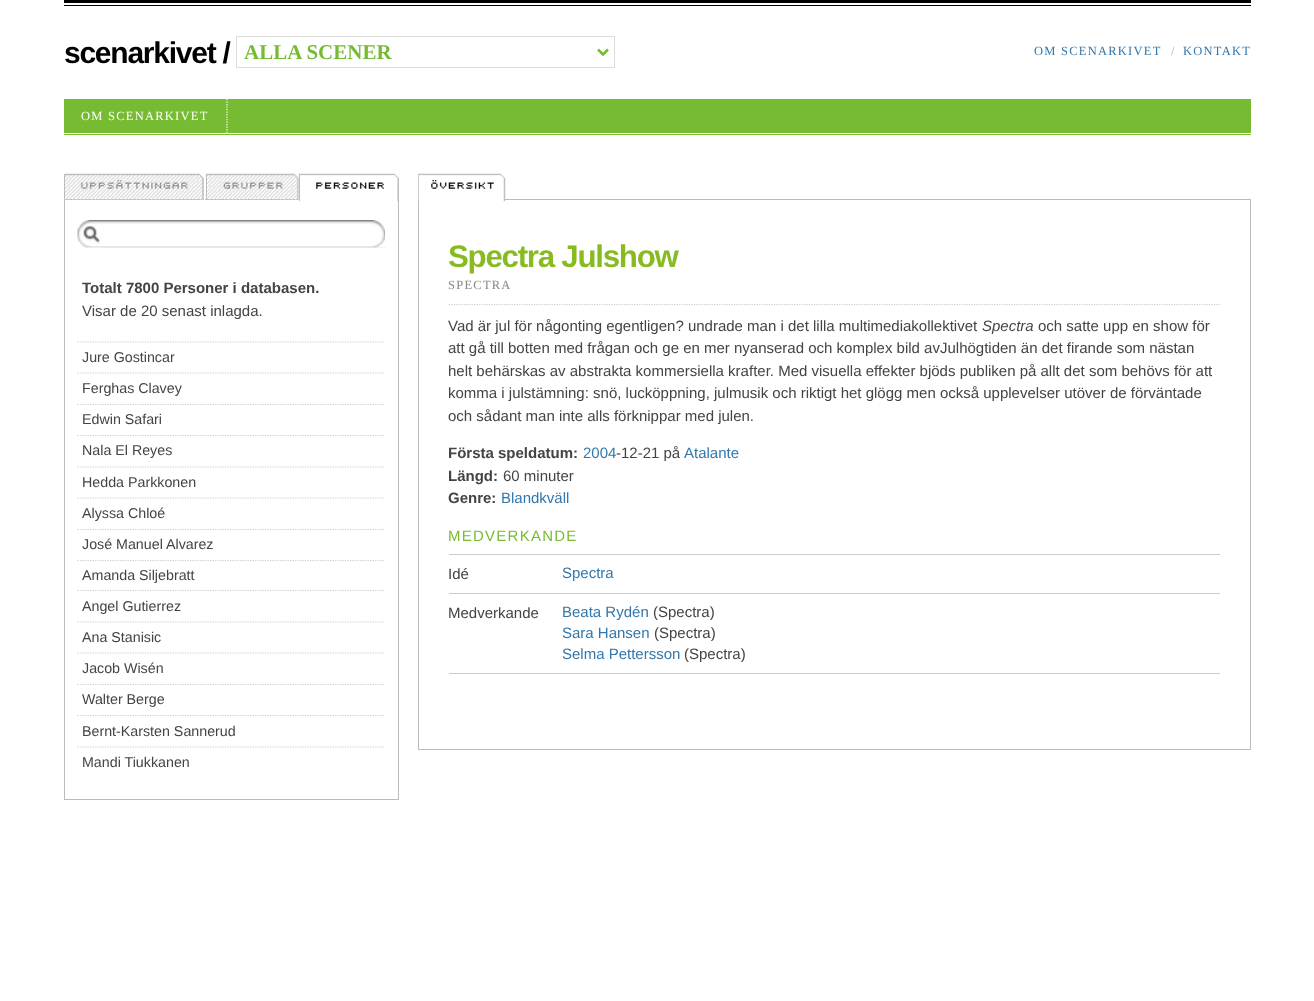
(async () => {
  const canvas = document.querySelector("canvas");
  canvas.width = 1314;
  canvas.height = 1001;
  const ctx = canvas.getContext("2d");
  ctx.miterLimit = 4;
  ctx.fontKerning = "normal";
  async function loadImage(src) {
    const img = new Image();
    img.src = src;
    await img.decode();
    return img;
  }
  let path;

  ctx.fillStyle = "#ffffff";
  ctx.fillRect(0, 0, 1314, 1001);
  ctx.fillStyle = "#000000";
  ctx.fillRect(64, 0, 1187, 3);
  ctx.fillRect(64, 5, 1187, 1);
  ctx.strokeStyle = "#dddddd";
  ctx.strokeRect(236.5, 36.5, 378, 31);
  path = new Path2D("M598 49.5L603 54.5L608 49.5");
  ctx.strokeStyle = "#77bb33";
  ctx.lineWidth = 2.5;
  ctx.stroke(path);
  ctx.fillStyle = "#77bb33";
  ctx.fillRect(64, 99, 1187, 36);
  ctx.fillStyle = "#ffffff";
  ctx.fillRect(64, 133, 1187, 1);
  path = new Path2D("M227 99V132.5");
  ctx.strokeStyle = "#ffffff";
  ctx.lineWidth = 1.2;
  ctx.setLineDash([1.25, 1.25]);
  ctx.stroke(path);
  for (const [x, y, w, h, color] of [
    [398, 174, 1, 626, "#bbbbbb"],
    [64, 799, 335, 1, "#bbbbbb"],
    [64, 174, 1, 626, "#bbbbbb"],
    [65, 199, 233, 1, "#bbbbbb"],
  ]) {
    ctx.fillStyle = color;
    ctx.fillRect(x, y, w, h);
  }
  ctx.drawImage(await loadImage("img/1.png"), 65, 173, 140, 27);
  ctx.drawImage(await loadImage("img/2.png"), 65, 175, 138, 24);
  ctx.drawImage(await loadImage("img/3.png"), 81, 180, 107, 9);
  ctx.drawImage(await loadImage("img/4.png"), 206, 173, 94, 27);
  ctx.fillRect(206, 174, 1, 26);
  ctx.drawImage(await loadImage("img/5.png"), 208, 175, 90, 24);
  ctx.drawImage(await loadImage("img/6.png"), 223, 182, 60, 7);
  ctx.drawImage(await loadImage("img/7.png"), 298, 173, 101, 29);
  ctx.fillRect(299, 174, 1, 27);
  ctx.drawImage(await loadImage("img/8.png"), 398, 174, 1, 4);
  ctx.drawImage(await loadImage("img/9.png"), 316, 182, 68, 7);
  ctx.drawImage(await loadImage("img/10.png"), 77, 220, 308, 28);
  ctx.drawImage(await loadImage("img/11.png"), 103, 220, 282, 28);
  path = new Path2D("M77.5 342H385");
  ctx.strokeStyle = "#cccccc";
  ctx.stroke(path);
  path = new Path2D("M77.5 373H385");
  ctx.stroke(path);
  path = new Path2D("M77.5 404.5H385");
  ctx.stroke(path);
  path = new Path2D("M77.5 435.5H385");
  ctx.stroke(path);
  path = new Path2D("M77.5 467H385");
  ctx.stroke(path);
  path = new Path2D("M77.5 498H385");
  ctx.stroke(path);
  path = new Path2D("M77.5 529.5H385");
  ctx.stroke(path);
  path = new Path2D("M77.5 560.5H385");
  ctx.stroke(path);
  path = new Path2D("M77.5 590.5H385");
  ctx.stroke(path);
  path = new Path2D("M77.5 622H385");
  ctx.stroke(path);
  path = new Path2D("M77.5 653H385");
  ctx.stroke(path);
  path = new Path2D("M77.5 684.5H385");
  ctx.stroke(path);
  path = new Path2D("M77.5 715.5H385");
  ctx.stroke(path);
  path = new Path2D("M77.5 747H385");
  ctx.stroke(path);
  ctx.strokeStyle = "#bbbbbb";
  ctx.lineWidth = 1;
  ctx.setLineDash([]);
  ctx.strokeRect(418.5, 174.5, 832, 575);
  ctx.fillStyle = "#ffffff";
  ctx.fillRect(504, 174, 747, 25);
  ctx.fillStyle = "#bbbbbb";
  ctx.fillRect(504, 199, 747, 1);
  ctx.drawImage(await loadImage("img/12.png"), 418, 173, 88, 29);
  ctx.drawImage(await loadImage("img/13.png"), 505, 178, 1, 21);
  ctx.drawImage(await loadImage("img/14.png"), 431, 180, 63, 9);
  path = new Path2D("M449 304.5H1220");
  ctx.strokeStyle = "#cccccc";
  ctx.lineWidth = 1.2;
  ctx.setLineDash([1.25, 1.25]);
  ctx.stroke(path);
  for (const [x, y, w, h, color] of [
    [449, 554, 771, 1, "#cccccc"],
    [449, 593, 771, 1, "#cccccc"],
    [449, 673, 771, 1, "#cccccc"],
  ]) {
    ctx.fillStyle = color;
    ctx.fillRect(x, y, w, h);
  }
  ctx.letterSpacing = "-1.25px";
  ctx.font = "bold 30px Liberation Sans";
  ctx.fillStyle = "#000000";
  ctx.fillText("scenarkivet /", 64, 63);
  ctx.letterSpacing = "0px";
  ctx.font = "bold 21px Liberation Serif";
  ctx.fillStyle = "#77bb33";
  ctx.fillText("ALLA SCENER", 244, 59);
  ctx.letterSpacing = "1.25px";
  ctx.font = "12.5px Liberation Serif";
  ctx.fillStyle = "#3377aa";
  ctx.fillText("OM SCENARKIVET", 1034, 55);
  ctx.letterSpacing = "0px";
  ctx.fillStyle = "#aaaaaa";
  ctx.fillText("/", 1171, 55);
  ctx.letterSpacing = "1.25px";
  ctx.fillStyle = "#3377aa";
  ctx.fillText("KONTAKT", 1183, 55);
  ctx.fillStyle = "#ffffff";
  ctx.fillText("OM SCENARKIVET", 81, 120);
  ctx.letterSpacing = "0px";
  ctx.font = "bold 15px Liberation Sans";
  ctx.fillStyle = "#444444";
  ctx.fillText("Totalt 7800 Personer i databasen.", 82, 293);
  ctx.font = "15px Liberation Sans";
  ctx.fillText("Visar de 20 senast inlagda.", 82, 316);
  ctx.font = "14.25px Liberation Sans";
  for (const [text, x, y] of [
    ["Jure Gostincar", 82, 362],
    ["Ferghas Clavey", 82, 393],
    ["Edwin Safari", 82, 424],
    ["Nala El Reyes", 82, 455],
    ["Hedda Parkkonen", 82, 487],
    ["Alyssa Chloé", 82, 518],
    ["José Manuel Alvarez", 82, 549],
    ["Amanda Siljebratt", 82, 580],
    ["Angel Gutierrez", 82, 611],
    ["Ana Stanisic", 82, 642],
    ["Jacob Wisén", 82, 673],
    ["Walter Berge", 82, 704],
    ["Bernt-Karsten Sannerud", 82, 736],
    ["Mandi Tiukkanen", 82, 767],
  ]) {
    ctx.fillText(text, x, y);
  }
  ctx.letterSpacing = "-1.25px";
  ctx.font = "bold 31.25px Liberation Sans";
  ctx.fillStyle = "#88bb22";
  ctx.fillText("Spectra Julshow", 448, 267);
  ctx.letterSpacing = "1.25px";
  ctx.font = "12.5px Liberation Serif";
  ctx.fillStyle = "#888888";
  ctx.fillText("SPECTRA", 448, 289);
  ctx.letterSpacing = "0px";
  ctx.font = "15px Liberation Sans";
  ctx.fillStyle = "#444444";
  ctx.fillText("Vad är jul för någonting egentligen? undrade man i det lilla multimediakollektivet", 448, 331);
  ctx.font = "italic 15px Liberation Sans";
  ctx.fillText("Spectra", 982, 331);
  ctx.font = "15px Liberation Sans";
  for (const [text, x, y] of [
    ["och satte upp en show för", 1038, 331],
    ["att gå till botten med frågan och ge en mer nyanserad och komplex bild avJulhögtiden än det firande som nästan", 448, 353],
    ["helt behärskas av abstrakta kommersiella krafter. Med visuella effekter bjöds publiken på allt det som behövs för att", 448, 376],
    ["komma i julstämning: snö, lucköppning, julmusik och riktigt het glögg men också upplevelser utöver de förväntade", 448, 398],
    ["och sådant man inte alls förknippar med julen.", 448, 421],
  ]) {
    ctx.fillText(text, x, y);
  }
  ctx.font = "bold 15px Liberation Sans";
  ctx.fillText("Första speldatum:", 448, 458);
  ctx.font = "15px Liberation Sans";
  ctx.fillStyle = "#3377aa";
  ctx.fillText("2004", 583, 458);
  ctx.fillStyle = "#444444";
  ctx.fillText("-12-21 på", 616, 458);
  ctx.fillStyle = "#3377aa";
  ctx.fillText("Atalante", 684, 458);
  ctx.font = "bold 15px Liberation Sans";
  ctx.fillStyle = "#444444";
  ctx.fillText("Längd:", 448, 481);
  ctx.font = "15px Liberation Sans";
  ctx.fillText("60 minuter", 503, 481);
  ctx.font = "bold 15px Liberation Sans";
  ctx.fillText("Genre:", 448, 503);
  ctx.font = "15px Liberation Sans";
  ctx.fillStyle = "#3377aa";
  ctx.fillText("Blandkväll", 501, 503);
  ctx.letterSpacing = "1.25px";
  ctx.fillStyle = "#77bb33";
  ctx.fillText("MEDVERKANDE", 448, 541);
  ctx.letterSpacing = "0px";
  ctx.fillStyle = "#444444";
  ctx.fillText("Idé", 448, 579);
  ctx.fillStyle = "#3377aa";
  ctx.fillText("Spectra", 562, 578);
  ctx.fillStyle = "#444444";
  ctx.fillText("Medverkande", 448, 618);
  ctx.fillStyle = "#3377aa";
  ctx.fillText("Beata Rydén", 562, 617);
  ctx.fillStyle = "#444444";
  ctx.fillText("(Spectra)", 653, 617);
  ctx.fillStyle = "#3377aa";
  ctx.fillText("Sara Hansen", 562, 638);
  ctx.fillStyle = "#444444";
  ctx.fillText("(Spectra)", 654, 638);
  ctx.fillStyle = "#3377aa";
  ctx.fillText("Selma Pettersson", 562, 659);
  ctx.fillStyle = "#444444";
  ctx.fillText("(Spectra)", 684, 659);
})();
